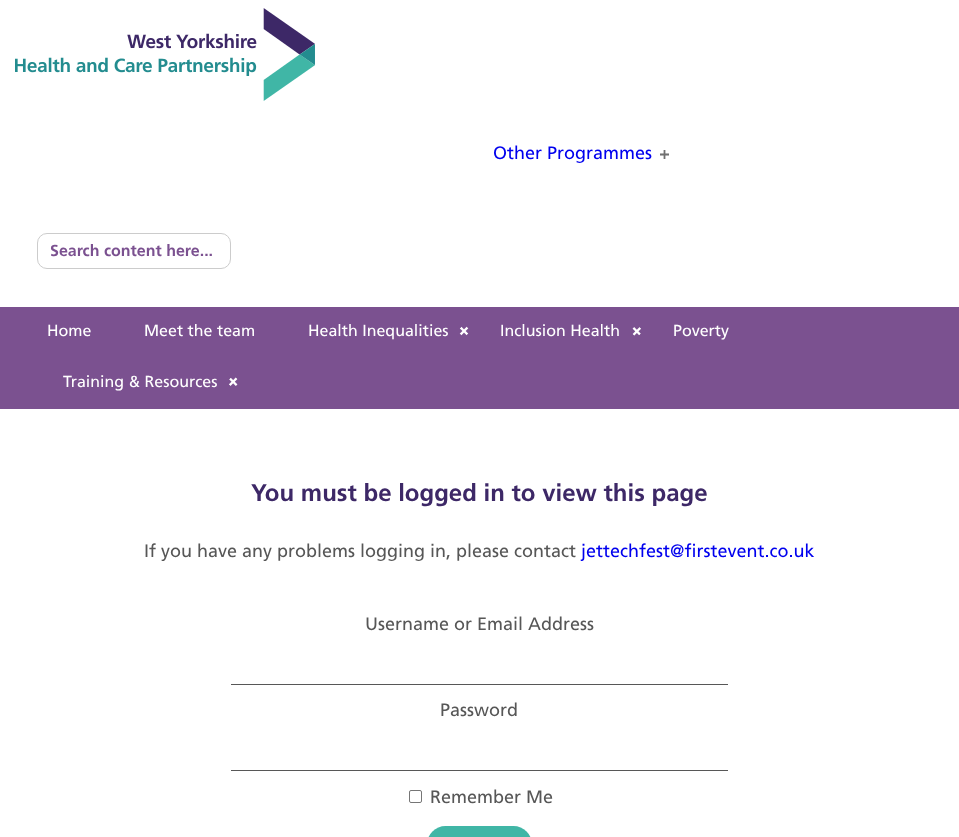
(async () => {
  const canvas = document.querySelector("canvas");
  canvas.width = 959;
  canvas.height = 837;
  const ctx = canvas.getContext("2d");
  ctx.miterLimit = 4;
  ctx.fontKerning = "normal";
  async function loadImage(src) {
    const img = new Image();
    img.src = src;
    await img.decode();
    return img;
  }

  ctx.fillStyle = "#ffffff";
  ctx.fillRect(0, 0, 959, 837);
  ctx.drawImage(await loadImage("img/1.png"), 15, 8, 300, 93);
  ctx.drawImage(await loadImage("img/2.png"), 660, 150, 9, 9);
  ctx.beginPath();
  ctx.roundRect(37.5, 233.5, 193, 35, 9.5);
  ctx.strokeStyle = "#cccccc";
  ctx.stroke();
  ctx.fillStyle = "#7b5190";
  ctx.fillRect(0, 307, 959, 102);
  ctx.drawImage(await loadImage("img/3.png"), 459, 326, 10, 10);
  ctx.drawImage(await loadImage("img/4.png"), 632, 327, 9, 9);
  ctx.drawImage(await loadImage("img/5.png"), 229, 377, 9, 9);
  ctx.fillStyle = "#575757";
  ctx.fillRect(231, 684, 497, 1);
  ctx.fillRect(231, 770, 497, 1);
  ctx.beginPath();
  ctx.roundRect(409.5, 790.5, 12, 12, 1.5);
  ctx.strokeStyle = "#767676";
  ctx.stroke();
  ctx.fillStyle = "#40b6a6";
  ctx.beginPath();
  ctx.roundRect(427, 826, 105, 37, 26);
  ctx.fill();
  ctx.font = "18px Frutiger";
  ctx.fillStyle = "#0000ee";
  ctx.fillText("Other Programmes", 493, 159);
  ctx.font = "bold 16px Frutiger";
  ctx.fillStyle = "#7b5190";
  ctx.fillText("Search content here...", 50, 256);
  ctx.font = "16px Frutiger";
  ctx.fillStyle = "#ffffff";
  for (const [text, x, y] of [
    ["Home", 47, 336],
    ["Meet the team", 144, 336],
    ["Health Inequalities", 308, 336],
    ["Inclusion Health", 500, 336],
    ["Poverty", 673, 336],
    ["Training & Resources", 63, 387],
  ]) {
    ctx.fillText(text, x, y);
  }
  ctx.font = "bold 24px Frutiger";
  ctx.fillStyle = "#3d2867";
  ctx.fillText("You must be logged in to view this page", 251, 501);
  ctx.font = "18px Frutiger";
  ctx.fillStyle = "#575757";
  ctx.fillText("If you have any problems logging in, please contact", 144, 557);
  ctx.fillStyle = "#0000ee";
  ctx.fillText("jettechfest@firstevent.co.uk", 581, 557);
  ctx.fillStyle = "#575757";
  for (const [text, x, y] of [
    ["Username or Email Address", 365, 630],
    ["Password", 440, 716],
    ["Remember Me", 430, 803],
  ]) {
    ctx.fillText(text, x, y);
  }
})();
